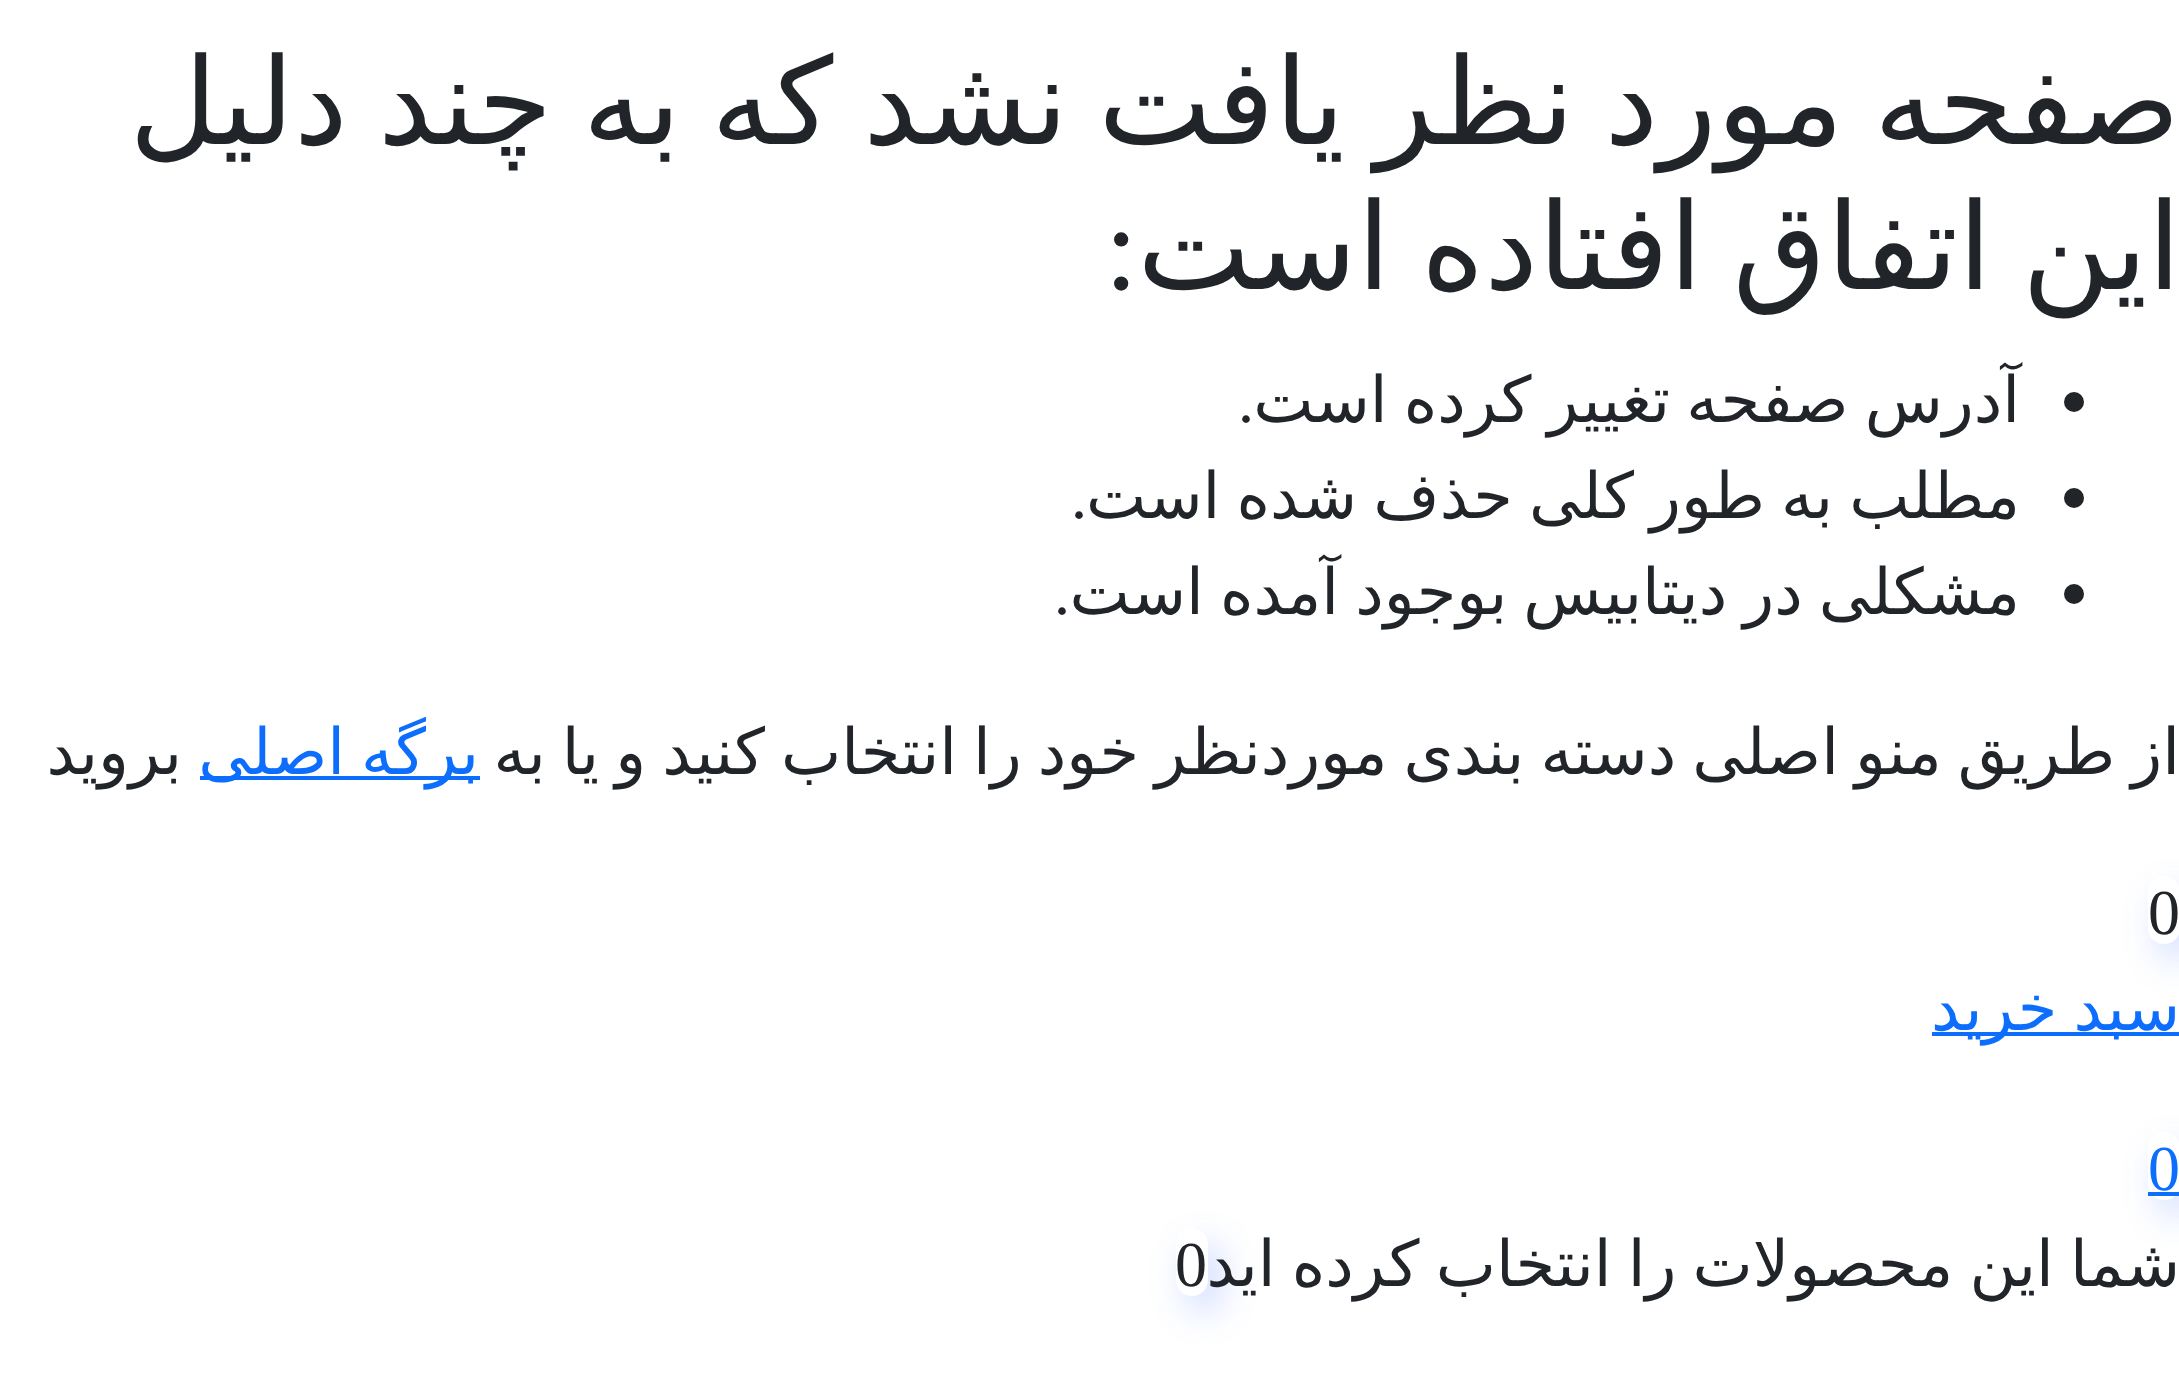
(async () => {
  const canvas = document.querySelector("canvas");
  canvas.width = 2179;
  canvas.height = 1379;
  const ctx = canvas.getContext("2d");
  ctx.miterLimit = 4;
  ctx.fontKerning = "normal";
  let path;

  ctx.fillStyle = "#ffffff";
  ctx.fillRect(0, 0, 2179, 1379);
  ctx.fillStyle = "#212529";
  ctx.beginPath();
  ctx.arc(2074, 402, 10, 0, Math.PI * 2);
  ctx.fill();
  ctx.beginPath();
  ctx.arc(2074, 498, 10, 0, Math.PI * 2);
  ctx.fill();
  ctx.beginPath();
  ctx.arc(2074, 594, 10, 0, Math.PI * 2);
  ctx.fill();
  ctx.fillStyle = "#0d6efd";
  ctx.fillRect(200, 776, 280, 4);
  ctx.save();
  path = new Path2D("M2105 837H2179V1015H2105ZM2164 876C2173 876 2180 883 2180 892V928C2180 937 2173 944 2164 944C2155 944 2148 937 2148 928V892C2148 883 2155 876 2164 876Z");
  ctx.clip(path, "evenodd");
  ctx.fillStyle = "rgba(0, 64, 255, 0.2)";
  ctx.filter = "blur(18px)";
  ctx.beginPath();
  ctx.roundRect(2160, 892, 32, 68, 16);
  ctx.fill();
  ctx.filter = "none";
  ctx.restore();
  ctx.fillRect(1932, 1032, 247, 4);
  ctx.save();
  path = new Path2D("M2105 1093H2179V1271H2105ZM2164 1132C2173 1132 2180 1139 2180 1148V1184C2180 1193 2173 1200 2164 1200C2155 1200 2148 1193 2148 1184V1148C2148 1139 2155 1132 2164 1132Z");
  ctx.clip(path, "evenodd");
  ctx.fillStyle = "rgba(0, 64, 255, 0.2)";
  ctx.filter = "blur(18px)";
  ctx.beginPath();
  ctx.roundRect(2160, 1148, 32, 68, 16);
  ctx.fill();
  ctx.filter = "none";
  ctx.restore();
  ctx.fillRect(2148, 1192, 31, 4);
  ctx.save();
  path = new Path2D("M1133 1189H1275V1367H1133ZM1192 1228C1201 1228 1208 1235 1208 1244V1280C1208 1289 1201 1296 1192 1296C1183 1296 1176 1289 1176 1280V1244C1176 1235 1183 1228 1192 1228Z");
  ctx.clip(path, "evenodd");
  ctx.fillStyle = "rgba(0, 64, 255, 0.2)";
  ctx.filter = "blur(18px)";
  ctx.beginPath();
  ctx.roundRect(1188, 1244, 32, 68, 16);
  ctx.fill();
  ctx.filter = "none";
  ctx.restore();
  ctx.wordSpacing = "-8.25px";
  ctx.direction = "rtl";
  ctx.font = "120.75px DejaVu Sans";
  ctx.fillStyle = "#212529";
  ctx.fillText("صفحه مورد نظر یافت نشد که به چند دلیل", 2180, 144);
  ctx.wordSpacing = "-8px";
  ctx.fillText("این اتفاق افتاده است", 2181, 289);
  ctx.wordSpacing = "0px";
  ctx.font = "120.75px Liberation Serif";
  ctx.fillText(":", 1138, 289);
  ctx.wordSpacing = "-4.25px";
  ctx.font = "64px DejaVu Sans";
  ctx.fillText("آدرس صفحه تغییر کرده است", 2020, 422);
  ctx.wordSpacing = "0px";
  ctx.font = "64px Liberation Serif";
  ctx.fillText(".", 1254, 422);
  ctx.wordSpacing = "-4.25px";
  ctx.font = "64px DejaVu Sans";
  ctx.fillText("مطلب به طور کلی حذف شده است", 2020, 518);
  ctx.wordSpacing = "0px";
  ctx.font = "64px Liberation Serif";
  ctx.fillText(".", 1087, 518);
  ctx.wordSpacing = "-4.25px";
  ctx.font = "64px DejaVu Sans";
  ctx.fillText("مشکلی در دیتابیس بوجود آمده است", 2020, 614);
  ctx.wordSpacing = "0px";
  ctx.font = "64px Liberation Serif";
  ctx.fillText(".", 1070, 614);
  ctx.wordSpacing = "-4.25px";
  ctx.font = "64px DejaVu Sans";
  ctx.fillText("از طریق منو اصلی دسته بندی موردنظر خود را انتخاب کنید و یا به", 2180, 774);
  ctx.fillStyle = "#0d6efd";
  ctx.fillText("برگه اصلی", 479, 774);
  ctx.wordSpacing = "0px";
  ctx.fillStyle = "#212529";
  ctx.fillText("بروید", 182, 774);
  ctx.direction = "ltr";
  ctx.font = "64px Liberation Serif";
  ctx.fillText("0", 2148, 934);
  ctx.wordSpacing = "-4.25px";
  ctx.direction = "rtl";
  ctx.font = "64px DejaVu Sans";
  ctx.fillStyle = "#0d6efd";
  ctx.fillText("سبد خرید", 2180, 1030);
  ctx.wordSpacing = "0px";
  ctx.direction = "ltr";
  ctx.font = "64px Liberation Serif";
  ctx.fillText("0", 2148, 1190);
  ctx.wordSpacing = "-4.25px";
  ctx.direction = "rtl";
  ctx.font = "64px DejaVu Sans";
  ctx.fillStyle = "#212529";
  ctx.fillText("شما این محصولات را انتخاب کرده اید", 2180, 1286);
  ctx.wordSpacing = "0px";
  ctx.direction = "ltr";
  ctx.font = "64px Liberation Serif";
  ctx.fillText("0", 1175, 1286);
})();
